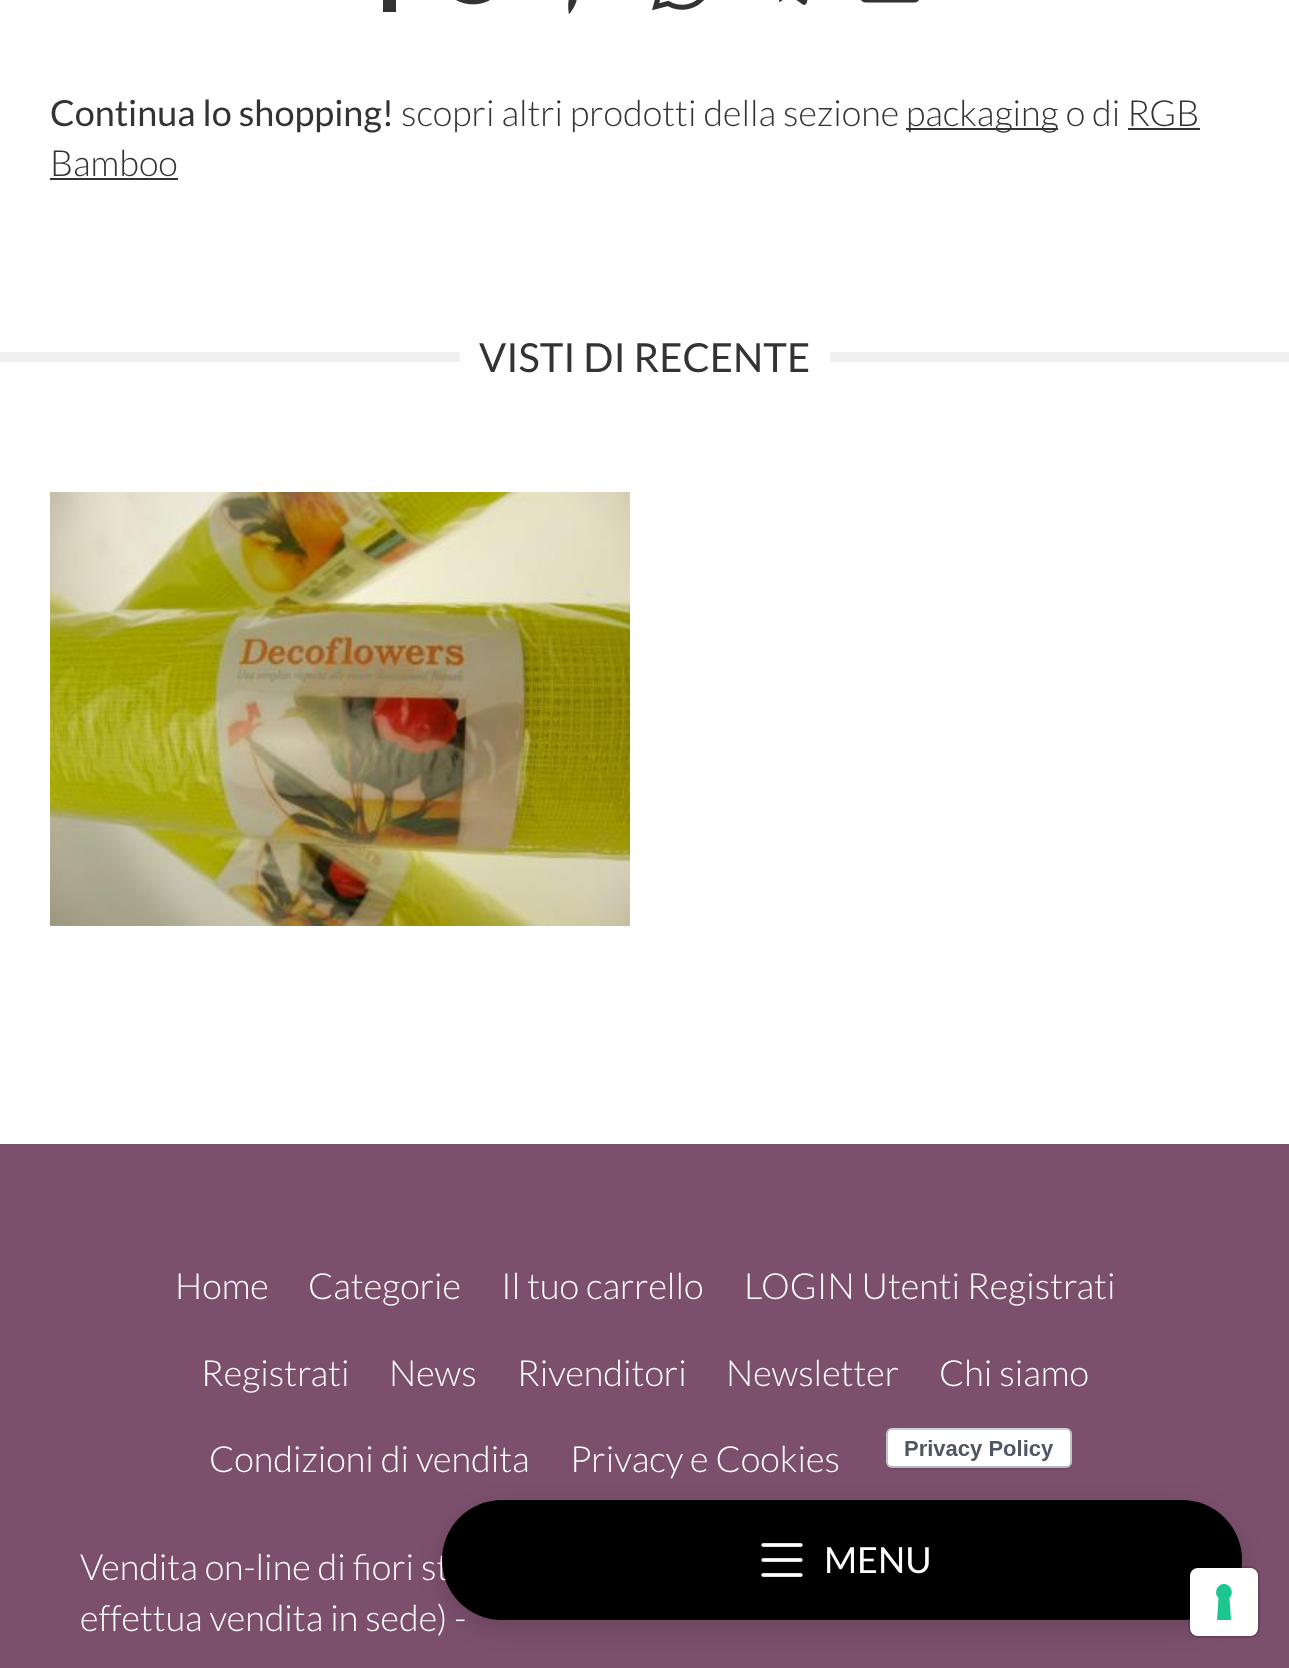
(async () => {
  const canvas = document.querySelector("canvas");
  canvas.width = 1289;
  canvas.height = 1668;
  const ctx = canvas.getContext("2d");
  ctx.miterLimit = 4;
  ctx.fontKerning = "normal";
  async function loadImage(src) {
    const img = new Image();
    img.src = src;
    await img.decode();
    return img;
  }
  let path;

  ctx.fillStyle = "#ffffff";
  ctx.fillRect(0, 0, 1289, 1668);
  ctx.fillStyle = "#333333";
  ctx.fillRect(383, 0, 13, 12);
  ctx.drawImage(await loadImage("img/1.png"), 456, 0, 34, 5);
  ctx.drawImage(await loadImage("img/2.png"), 568, 0, 9, 14);
  ctx.drawImage(await loadImage("img/3.png"), 652, 0, 52, 11);
  path = new Path2D("M816-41L807 2C806 5 804 6 802 4L788-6C786-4 782 2 779 2L780-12L805-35C806-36 805-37 803-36L772-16L758-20C755-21 755-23 759-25L812-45C814-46 817-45 816-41Z");
  ctx.fill(path);
  ctx.drawImage(await loadImage("img/4.png"), 861, 0, 58, 3);
  for (const [x, y, w, h, color] of [
    [906, 128, 152, 2, "#333333"],
    [1128, 128, 72, 2, "#333333"],
    [50, 178, 128, 2, "#333333"],
    [0, 352, 460, 10, "#f0f0f0"],
    [830, 352, 459, 10, "#f0f0f0"],
  ]) {
    ctx.fillStyle = color;
    ctx.fillRect(x, y, w, h);
  }
  ctx.drawImage(await loadImage("img/5.png"), 50, 492, 580, 434);
  ctx.fillStyle = "#7c506d";
  ctx.fillRect(0, 1144, 1289, 524);
  ctx.drawImage(await loadImage("img/6.png"), 886, 1428, 186, 42);
  ctx.fillStyle = "rgba(0, 0, 0, 0.15)";
  ctx.filter = "blur(12px)";
  ctx.beginPath();
  ctx.roundRect(442, 1508, 800, 120, 60);
  ctx.fill();
  ctx.filter = "none";
  ctx.font = "36px Lato";
  ctx.fillStyle = "#333333";
  ctx.fillText("Continua lo shopping!", 50, 126);
  ctx.font = "300 36px Lato";
  for (const [text, x, y] of [
    ["scopri altri prodotti della sezione", 401, 126],
    ["packaging o di RGB", 906, 126],
    ["Bamboo", 50, 176],
  ]) {
    ctx.fillText(text, x, y);
  }
  ctx.font = "40px Lato";
  ctx.fillText("VISTI DI RECENTE", 479, 372);
  ctx.font = "300 36px Lato";
  ctx.fillStyle = "#ffffff";
  for (const [text, x, y] of [
    ["Home", 175, 1299],
    ["Categorie", 308, 1299],
    ["Il tuo carrello", 501, 1299],
    ["LOGIN Utenti Registrati", 744, 1299],
    ["Registrati", 201, 1386],
    ["News", 389, 1386],
    ["Rivenditori", 517, 1386],
    ["Newsletter", 726, 1386],
    ["Chi siamo", 939, 1386],
    ["Condizioni di vendita", 209, 1472],
    ["Privacy e Cookies", 570, 1472],
    ["Vendita on-line di fiori st", 80, 1580],
    ["effettua vendita in sede) -", 80, 1631],
  ]) {
    ctx.fillText(text, x, y);
  }
  ctx.fillStyle = "#000000";
  ctx.beginPath();
  ctx.roundRect(442, 1500, 800, 120, 60);
  ctx.fill();
  ctx.drawImage(await loadImage("img/7.png"), 761, 1543, 42, 34);
  ctx.font = "36px Lato";
  ctx.fillStyle = "#ffffff";
  ctx.fillText("MENU", 824, 1573);
  ctx.beginPath();
  ctx.roundRect(1189, 1567, 70, 70, 9);
  ctx.strokeStyle = "rgba(0, 0, 0, 0.15)";
  ctx.lineWidth = 2;
  ctx.stroke();
  ctx.beginPath();
  ctx.roundRect(1190, 1568, 68, 68, 8);
  ctx.fill();
  ctx.fillStyle = "#1cc691";
  path = new Path2D("M1224 1584C1231 1584 1234.5 1593.5 1229.5 1598L1231 1620H1217L1218.5 1598C1213.5 1593.5 1217 1584 1224 1584Z");
  ctx.fill(path, "evenodd");
})();
